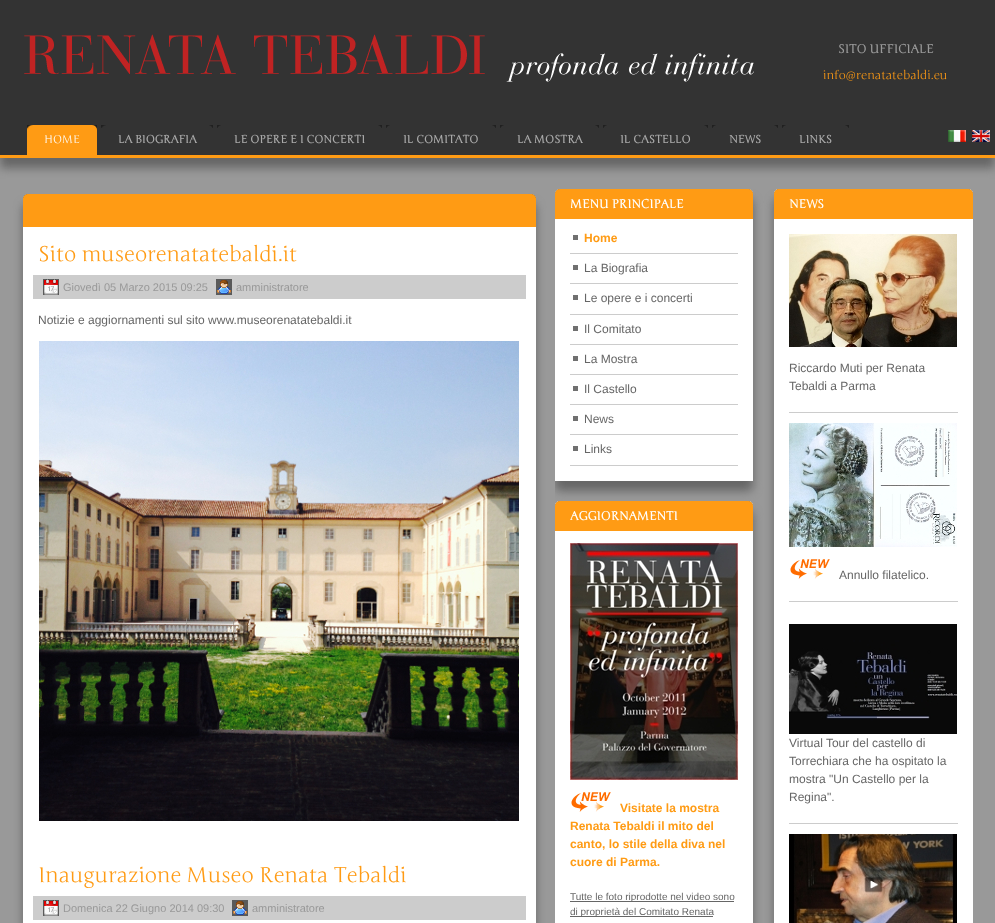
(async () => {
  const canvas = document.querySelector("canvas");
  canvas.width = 995;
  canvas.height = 923;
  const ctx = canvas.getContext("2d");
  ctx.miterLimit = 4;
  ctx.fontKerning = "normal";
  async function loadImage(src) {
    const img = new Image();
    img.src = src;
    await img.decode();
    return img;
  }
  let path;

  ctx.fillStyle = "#999999";
  ctx.fillRect(0, 0, 995, 923);
  ctx.fillStyle = "#666666";
  ctx.filter = "blur(5px)";
  ctx.beginPath();
  ctx.rect(0, 10, 995, 158);
  ctx.fill();
  ctx.filter = "none";
  ctx.fillStyle = "#333333";
  ctx.fillRect(0, 0, 995, 155);
  ctx.fillStyle = "#ff9b14";
  ctx.fillRect(0, 155, 995, 3);
  ctx.drawImage(await loadImage("img/1.png"), 24, 34, 730, 48);
  ctx.drawImage(await loadImage("img/2.png"), 948, 130, 18, 12);
  ctx.drawImage(await loadImage("img/3.png"), 972, 130, 18, 12);
  ctx.fillRect(27, 125, 70, 30);
  ctx.drawImage(await loadImage("img/4.png"), 27, 125, 6, 5);
  ctx.drawImage(await loadImage("img/5.png"), 92, 125, 5, 5);
  ctx.drawImage(await loadImage("img/6.png"), 101, 125, 5, 3);
  ctx.drawImage(await loadImage("img/7.png"), 209, 125, 4, 3);
  ctx.drawImage(await loadImage("img/8.png"), 217, 125, 4, 3);
  ctx.drawImage(await loadImage("img/7.png"), 378, 125, 4, 3);
  ctx.drawImage(await loadImage("img/8.png"), 386, 125, 4, 3);
  ctx.drawImage(await loadImage("img/7.png"), 492, 125, 4, 3);
  ctx.drawImage(await loadImage("img/8.png"), 500, 125, 4, 3);
  ctx.drawImage(await loadImage("img/7.png"), 595, 125, 4, 3);
  ctx.drawImage(await loadImage("img/8.png"), 603, 125, 4, 3);
  ctx.drawImage(await loadImage("img/7.png"), 704, 125, 4, 3);
  ctx.drawImage(await loadImage("img/8.png"), 712, 125, 4, 3);
  ctx.drawImage(await loadImage("img/7.png"), 774, 125, 4, 3);
  ctx.drawImage(await loadImage("img/8.png"), 782, 125, 4, 3);
  ctx.drawImage(await loadImage("img/7.png"), 845, 125, 4, 3);
  ctx.fillStyle = "#666666";
  ctx.filter = "blur(5px)";
  ctx.beginPath();
  ctx.roundRect(23, 204, 513, 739, 5);
  ctx.fill();
  ctx.filter = "none";
  ctx.fillStyle = "#ffffff";
  path = new Path2D("M28 194H531C534 194 536 196 536 199V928H23V199C23 196 25 194 28 194Z");
  ctx.fill(path);
  ctx.drawImage(await loadImage("img/9.png"), 531, 194, 5, 5);
  ctx.drawImage(await loadImage("img/10.png"), 23, 194, 5, 5);
  ctx.fillStyle = "#ff9b14";
  ctx.beginPath();
  ctx.roundRect(23, 194, 513, 33, [5, 5, 0, 0]);
  ctx.fill();
  ctx.fillStyle = "#cccccc";
  ctx.fillRect(33, 275, 493, 24);
  ctx.drawImage(await loadImage("img/11.png"), 43, 279, 16, 16);
  ctx.drawImage(await loadImage("img/12.png"), 216, 279, 16, 16);
  ctx.drawImage(await loadImage("img/13.png"), 39, 341, 480, 480);
  ctx.fillRect(33, 896, 493, 24);
  ctx.drawImage(await loadImage("img/11.png"), 43, 900, 16, 16);
  ctx.drawImage(await loadImage("img/12.png"), 232, 900, 16, 16);
  ctx.save();
  ctx.beginPath();
  ctx.rect(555, 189, 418, 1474);
  ctx.clip();
  ctx.fillStyle = "#666666";
  ctx.filter = "blur(5px)";
  ctx.beginPath();
  ctx.roundRect(555, 199, 198, 292, 5);
  ctx.fill();
  ctx.filter = "none";
  ctx.restore();
  ctx.fillStyle = "#ffffff";
  ctx.beginPath();
  ctx.roundRect(555, 189, 198, 292, [5, 5, 0, 0]);
  ctx.fill();
  ctx.drawImage(await loadImage("img/14.png"), 748, 189, 5, 5);
  ctx.drawImage(await loadImage("img/15.png"), 555, 189, 5, 5);
  ctx.fillStyle = "#ff9b14";
  ctx.beginPath();
  ctx.roundRect(555, 189, 198, 30, [5, 5, 0, 0]);
  ctx.fill();
  for (const [x, y, w, h, color] of [
    [570, 253, 168, 1, "#cccccc"],
    [573, 235, 5, 5, "#707070"],
    [570, 283, 168, 1, "#cccccc"],
    [573, 265, 5, 5, "#707070"],
    [570, 314, 168, 1, "#cccccc"],
    [573, 295, 5, 5, "#707070"],
    [570, 344, 168, 1, "#cccccc"],
    [573, 326, 5, 5, "#707070"],
    [570, 374, 168, 1, "#cccccc"],
    [573, 356, 5, 5, "#707070"],
    [570, 404, 168, 1, "#cccccc"],
    [573, 386, 5, 5, "#707070"],
    [570, 434, 168, 1, "#cccccc"],
    [573, 416, 5, 5, "#707070"],
    [570, 465, 168, 1, "#cccccc"],
    [573, 446, 5, 5, "#707070"],
  ]) {
    ctx.fillStyle = color;
    ctx.fillRect(x, y, w, h);
  }
  ctx.save();
  ctx.beginPath();
  ctx.rect(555, 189, 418, 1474);
  ctx.clip();
  ctx.fillStyle = "#666666";
  ctx.filter = "blur(5px)";
  ctx.beginPath();
  ctx.roundRect(555, 511, 198, 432, 5);
  ctx.fill();
  ctx.filter = "none";
  ctx.restore();
  ctx.fillStyle = "#ffffff";
  path = new Path2D("M560 501H748C751 501 753 503 753 506V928H555V506C555 503 557 501 560 501Z");
  ctx.fill(path);
  ctx.drawImage(await loadImage("img/14.png"), 748, 501, 5, 5);
  ctx.drawImage(await loadImage("img/15.png"), 555, 501, 5, 5);
  ctx.fillStyle = "#ff9b14";
  ctx.beginPath();
  ctx.roundRect(555, 501, 198, 30, [5, 5, 0, 0]);
  ctx.fill();
  ctx.drawImage(await loadImage("img/16.png"), 570, 543, 168, 237);
  ctx.drawImage(await loadImage("img/17.png"), 571, 792, 40, 20);
  ctx.fillStyle = "#666666";
  ctx.fillRect(570, 901, 164, 1);
  ctx.fillRect(570, 916, 143, 1);
  ctx.save();
  ctx.beginPath();
  ctx.rect(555, 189, 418, 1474);
  ctx.clip();
  ctx.filter = "blur(5px)";
  ctx.beginPath();
  ctx.roundRect(774, 199, 199, 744, 5);
  ctx.fill();
  ctx.filter = "none";
  ctx.restore();
  ctx.fillStyle = "#ffffff";
  path = new Path2D("M779 189H968C971 189 973 191 973 194V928H774V194C774 191 776 189 779 189Z");
  ctx.fill(path);
  ctx.drawImage(await loadImage("img/14.png"), 968, 189, 5, 5);
  ctx.drawImage(await loadImage("img/18.png"), 774, 189, 5, 5);
  ctx.fillStyle = "#ff9b14";
  ctx.beginPath();
  ctx.roundRect(774, 189, 199, 30, [5, 5, 0, 0]);
  ctx.fill();
  ctx.fillStyle = "#cccccc";
  ctx.fillRect(789, 412, 169, 1);
  ctx.drawImage(await loadImage("img/19.png"), 789, 234, 168, 113);
  ctx.fillRect(789, 601, 169, 1);
  ctx.drawImage(await loadImage("img/20.png"), 789, 423, 168, 124);
  ctx.drawImage(await loadImage("img/17.png"), 790, 559, 40, 20);
  ctx.fillRect(789, 823, 169, 1);
  ctx.drawImage(await loadImage("img/21.png"), 789, 624, 168, 110);
  ctx.drawImage(await loadImage("img/22.png"), 789, 834, 168, 89);
  ctx.font = "bold 12px Junge";
  ctx.fillStyle = "#999999";
  ctx.fillText("SITO UFFICIALE", 838, 53);
  ctx.font = "12px Junge";
  ctx.fillStyle = "#ff9b14";
  ctx.fillText("info@renatatebaldi.eu", 823, 79);
  ctx.font = "11px Junge";
  ctx.fillStyle = "#ffffff";
  ctx.fillText("HOME", 44, 143);
  ctx.font = "bold 11px Junge";
  ctx.fillStyle = "#aaaaaa";
  for (const [text, x, y] of [
    ["LA BIOGRAFIA", 118, 143],
    ["LE OPERE E I CONCERTI", 234, 143],
    ["IL COMITATO", 403, 143],
    ["LA MOSTRA", 517, 143],
    ["IL CASTELLO", 620, 143],
    ["NEWS", 729, 143],
    ["LINKS", 799, 143],
  ]) {
    ctx.fillText(text, x, y);
  }
  ctx.font = "21px Junge";
  ctx.fillStyle = "#ff9b14";
  ctx.fillText("Sito museorenatatebaldi.it", 38, 261);
  ctx.font = "11px Liberation Sans";
  ctx.fillStyle = "#999999";
  ctx.fillText("Giovedì 05 Marzo 2015 09:25", 63, 291);
  ctx.fillText("amministratore", 236, 291);
  ctx.font = "12px Liberation Sans";
  ctx.fillStyle = "#666666";
  ctx.fillText("Notizie e aggiornamenti sul sito www.museorenatatebaldi.it", 38, 324);
  ctx.font = "21px Junge";
  ctx.fillStyle = "#ff9b14";
  ctx.fillText("Inaugurazione Museo Renata Tebaldi", 38, 882);
  ctx.font = "11px Liberation Sans";
  ctx.fillStyle = "#999999";
  ctx.fillText("Domenica 22 Giugno 2014 09:30", 63, 912);
  ctx.fillText("amministratore", 252, 912);
  ctx.font = "bold 12px Junge";
  ctx.fillStyle = "#ffffff";
  ctx.fillText("MENU PRINCIPALE", 570, 208);
  ctx.font = "bold 12px Liberation Sans";
  ctx.fillStyle = "#ff9b14";
  ctx.fillText("Home", 584, 242);
  ctx.font = "12px Liberation Sans";
  ctx.fillStyle = "#666666";
  for (const [text, x, y] of [
    ["La Biografia", 584, 272],
    ["Le opere e i concerti", 584, 302],
    ["Il Comitato", 584, 333],
    ["La Mostra", 584, 363],
    ["Il Castello", 584, 393],
    ["News", 584, 423],
    ["Links", 584, 453],
  ]) {
    ctx.fillText(text, x, y);
  }
  ctx.font = "bold 12px Junge";
  ctx.fillStyle = "#ffffff";
  ctx.fillText("AGGIORNAMENTI", 570, 520);
  ctx.font = "bold 12px Liberation Sans";
  ctx.fillStyle = "#ff9b14";
  for (const [text, x, y] of [
    ["Visitate la mostra", 620, 812],
    ["Renata Tebaldi il mito del", 570, 830],
    ["canto, lo stile della diva nel", 570, 848],
    ["cuore di Parma.", 570, 866],
  ]) {
    ctx.fillText(text, x, y);
  }
  ctx.font = "10px Liberation Sans";
  ctx.fillStyle = "#666666";
  ctx.fillText("Tutte le foto riprodotte nel video sono", 570, 900);
  ctx.fillText("di proprietà del Comitato Renata", 570, 915);
  ctx.font = "bold 12px Junge";
  ctx.fillStyle = "#ffffff";
  ctx.fillText("NEWS", 789, 208);
  ctx.font = "12px Liberation Sans";
  ctx.fillStyle = "#666666";
  for (const [text, x, y] of [
    ["Riccardo Muti per Renata", 789, 372],
    ["Tebaldi a Parma", 789, 390],
    ["Annullo filatelico.", 839, 579],
    ["Virtual Tour del castello di", 789, 747],
    ["Torrechiara che ha ospitato la", 789, 765],
    ["mostra \"Un Castello per la", 789, 783],
    ["Regina\".", 789, 801],
  ]) {
    ctx.fillText(text, x, y);
  }
})();
